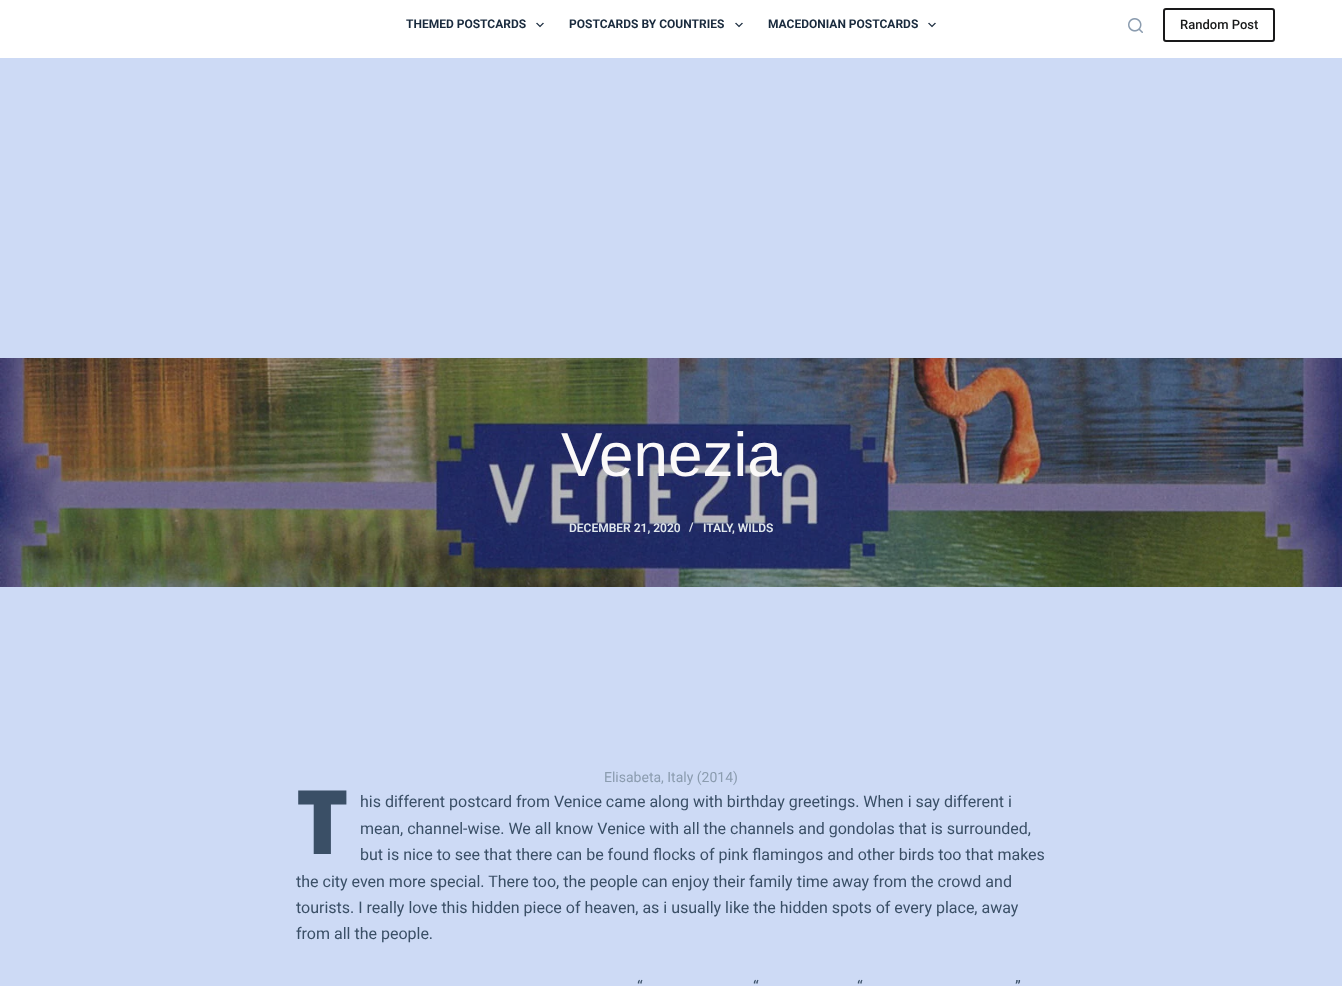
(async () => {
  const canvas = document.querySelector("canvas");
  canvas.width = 1342;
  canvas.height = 986;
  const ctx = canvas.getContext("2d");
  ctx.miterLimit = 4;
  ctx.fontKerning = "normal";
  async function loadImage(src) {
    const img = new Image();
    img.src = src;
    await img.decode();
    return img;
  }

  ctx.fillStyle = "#cddaf5";
  ctx.fillRect(0, 0, 1342, 986);
  ctx.fillStyle = "#ffffff";
  ctx.fillRect(0, 0, 1342, 58);
  ctx.drawImage(await loadImage("img/1.png"), 536, 22, 8, 6);
  ctx.drawImage(await loadImage("img/1.png"), 735, 22, 8, 6);
  ctx.drawImage(await loadImage("img/1.png"), 928, 22, 8, 6);
  ctx.drawImage(await loadImage("img/2.png"), 1128, 18, 15, 15);
  ctx.beginPath();
  ctx.roundRect(1164, 9, 110, 32, 2);
  ctx.strokeStyle = "#19191a";
  ctx.lineWidth = 2;
  ctx.stroke();
  ctx.drawImage(await loadImage("img/3.png"), 0, 358, 1342, 229);
  ctx.font = "bold 12px Roboto";
  ctx.fillStyle = "#192a3d";
  for (const [text, x, y] of [
    ["THEMED POSTCARDS", 406, 28],
    ["POSTCARDS BY COUNTRIES", 569, 28],
    ["MACEDONIAN POSTCARDS", 768, 28],
  ]) {
    ctx.fillText(text, x, y);
  }
  ctx.font = "500 13px Roboto";
  ctx.fillStyle = "#171818";
  ctx.fillText("Random Post", 1180, 29);
  ctx.font = "62px Liberation Sans";
  ctx.fillStyle = "#fbf9f9";
  ctx.fillText("Venezia", 561, 476);
  ctx.font = "600 12px Roboto";
  ctx.fillStyle = "#e1e8ed";
  for (const [text, x, y] of [
    ["DECEMBER 21, 2020", 569, 532],
    ["/", 689, 531],
    ["ITALY", 703, 532],
    [", WILDS", 732, 532],
  ]) {
    ctx.fillText(text, x, y);
  }
  ctx.font = "14px Roboto";
  ctx.fillStyle = "#8b9caf";
  ctx.fillText("Elisabeta, Italy (2014)", 604, 782);
  ctx.font = "900 89px Noto Sans";
  ctx.fillStyle = "#3a4f66";
  ctx.fillText("T", 296, 854);
  ctx.font = "16px Roboto";
  for (const [text, x, y] of [
    ["his different postcard from Venice came along with birthday greetings. When i say different i", 360, 807],
    ["mean, channel-wise. We all know Venice with all the channels and gondolas that is surrounded,", 360, 834],
    ["but is nice to see that there can be found flocks of pink flamingos and other birds too that makes", 360, 860],
    ["the city even more special. There too, the people can enjoy their family time away from the crowd and", 296, 887],
    ["tourists. I really love this hidden piece of heaven, as i usually like the hidden spots of every place, away", 296, 913],
    ["from all the people.", 296, 939],
    ["“", 637, 992],
    ["“", 753, 992],
    ["“", 857, 992],
    ["”", 1015, 992],
  ]) {
    ctx.fillText(text, x, y);
  }
})();
